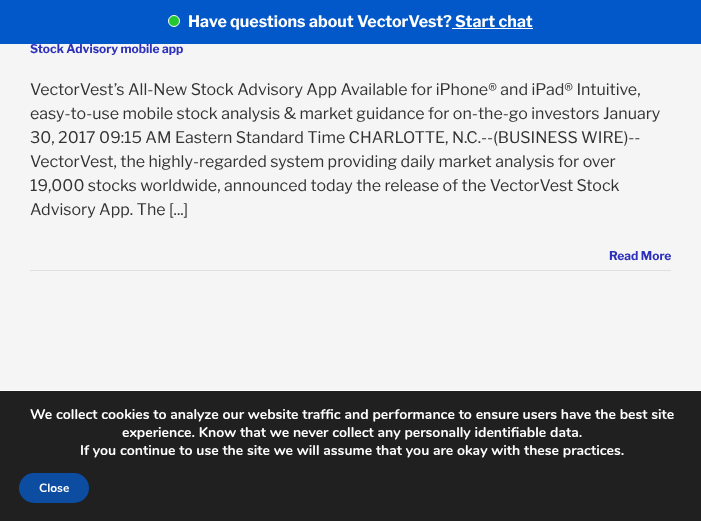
(async () => {
  const canvas = document.querySelector("canvas");
  canvas.width = 701;
  canvas.height = 521;
  const ctx = canvas.getContext("2d");
  ctx.miterLimit = 4;
  ctx.fontKerning = "normal";

  ctx.fillStyle = "#f5f5f5";
  ctx.fillRect(0, 0, 701, 521);
  ctx.fillStyle = "#0258c9";
  ctx.fillRect(0, 0, 701, 44);
  ctx.fillStyle = "#23c731";
  ctx.beginPath();
  ctx.arc(174, 21, 5.5, 0, Math.PI * 2);
  ctx.fill();
  ctx.strokeStyle = "#ffffff";
  ctx.stroke();
  for (const [x, y, w, h, color] of [
    [452, 28, 81, 1, "#ffffff"],
    [30, 270, 641, 1, "#e0dede"],
    [0, 391, 701, 130, "#202020"],
    [0, 390, 701, 1, "#ffffff"],
  ]) {
    ctx.fillStyle = color;
    ctx.fillRect(x, y, w, h);
  }
  ctx.fillStyle = "#0c4da2";
  ctx.beginPath();
  ctx.roundRect(19, 473, 70, 30, 15);
  ctx.fill();
  ctx.font = "bold 16px Libre Franklin";
  ctx.fillStyle = "#ffffff";
  ctx.fillText("Have questions about VectorVest? Start chat", 188, 27);
  ctx.font = "bold 12px Libre Franklin";
  ctx.fillStyle = "#2c30bb";
  ctx.fillText("Stock Advisory mobile app", 30, 53);
  ctx.font = "16px Libre Franklin";
  ctx.fillStyle = "#333333";
  for (const [text, x, y] of [
    ["VectorVest’s All-New Stock Advisory App Available for iPhone® and iPad® Intuitive,", 30, 95],
    ["easy-to-use mobile stock analysis & market guidance for on-the-go investors January", 30, 119],
    ["30, 2017 09:15 AM Eastern Standard Time CHARLOTTE, N.C.--(BUSINESS WIRE)--", 30, 143],
    ["VectorVest, the highly-regarded system providing daily market analysis for over", 30, 167],
    ["19,000 stocks worldwide, announced today the release of the VectorVest Stock", 30, 191],
    ["Advisory App. The [...]", 30, 215],
  ]) {
    ctx.fillText(text, x, y);
  }
  ctx.font = "bold 12px Libre Franklin";
  ctx.fillStyle = "#2c30bb";
  ctx.fillText("Read More", 609, 260);
  ctx.font = "bold 14px Nunito";
  ctx.fillStyle = "#ffffff";
  for (const [text, x, y] of [
    ["We collect cookies to analyze our website traffic and performance to ensure users have the best site", 30, 419],
    ["experience. Know that we never collect any personally identifiable data.", 122, 437],
    ["If you continue to use the site we will assume that you are okay with these practices.", 80, 455],
  ]) {
    ctx.fillText(text, x, y);
  }
  ctx.font = "bold 12px Nunito";
  ctx.fillText("Close", 39, 492);
})();
